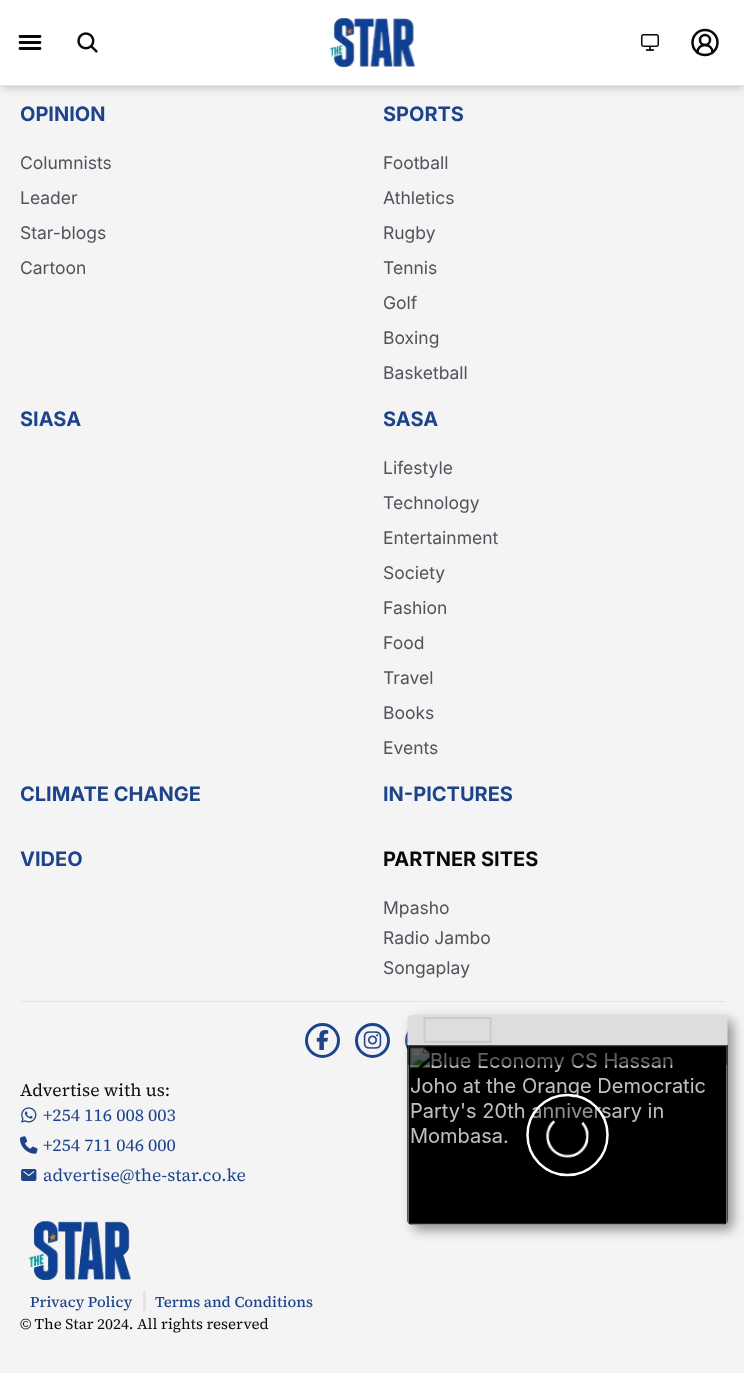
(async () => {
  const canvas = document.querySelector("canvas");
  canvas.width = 744;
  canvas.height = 1373;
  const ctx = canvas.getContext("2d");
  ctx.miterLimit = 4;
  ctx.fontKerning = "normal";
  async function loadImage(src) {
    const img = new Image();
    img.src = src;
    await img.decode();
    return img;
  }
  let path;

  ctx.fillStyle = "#f4f4f5";
  ctx.fillRect(0, 0, 744, 1373);
  ctx.fillStyle = "rgba(0, 0, 0, 0.1)";
  ctx.filter = "blur(2.5px)";
  ctx.beginPath();
  ctx.rect(3, 5, 740, 81);
  ctx.fill();
  ctx.filter = "none";
  ctx.filter = "blur(4px)";
  ctx.beginPath();
  ctx.rect(1, 6, 743, 84);
  ctx.fill();
  ctx.filter = "none";
  ctx.fillStyle = "#ffffff";
  ctx.fillRect(0, 0, 744, 85);
  ctx.fillStyle = "#e4e4e7";
  ctx.fillRect(0, 85, 744, 1);
  path = new Path2D("M20 36.5H40M20 42.5H40M20 48.5H40");
  ctx.strokeStyle = "#09090b";
  ctx.lineWidth = 2.8;
  ctx.lineCap = "round";
  ctx.stroke(path);
  ctx.drawImage(await loadImage("img/1.png"), 77, 32, 21, 21);
  ctx.drawImage(await loadImage("img/2.png"), 329, 18, 87, 49);
  ctx.drawImage(await loadImage("img/3.png"), 641, 34, 18, 17);
  path = new Path2D("M712.5 52.5C712.5 42.5 697.5 42.5 697.5 52.5");
  ctx.lineWidth = 2.5;
  ctx.lineJoin = "round";
  ctx.stroke(path);
  ctx.beginPath();
  ctx.arc(705, 40, 5, 0, Math.PI * 2);
  ctx.stroke();
  ctx.beginPath();
  ctx.arc(705, 42.5, 12.5, 0, Math.PI * 2);
  ctx.stroke();
  ctx.fillRect(20, 1001, 705, 1);
  ctx.beginPath();
  ctx.arc(322.5, 1040.5, 16, 0, Math.PI * 2);
  ctx.strokeStyle = "#1d448b";
  ctx.lineWidth = 3;
  ctx.stroke();
  ctx.drawImage(await loadImage("img/4.png"), 316, 1030, 13, 20);
  ctx.beginPath();
  ctx.arc(372.5, 1040.5, 16, 0, Math.PI * 2);
  ctx.stroke();
  ctx.drawImage(await loadImage("img/5.png"), 363, 1031, 19, 18);
  ctx.beginPath();
  ctx.arc(422.5, 1040.5, 16, 0, Math.PI * 2);
  ctx.stroke();
  ctx.drawImage(await loadImage("img/6.png"), 21, 1107, 16, 16);
  ctx.drawImage(await loadImage("img/7.png"), 20, 1136, 18, 18);
  ctx.drawImage(await loadImage("img/8.png"), 21, 1169, 16, 12);
  ctx.drawImage(await loadImage("img/9.png"), 29, 1221, 102, 59);
  ctx.fillRect(143, 1291, 3, 20);
  ctx.fillStyle = "rgba(255, 255, 255, 0.2)";
  ctx.filter = "blur(4px)";
  ctx.beginPath();
  ctx.roundRect(405, 1013, 320, 210, 5);
  ctx.fill();
  ctx.filter = "none";
  ctx.fillStyle = "rgba(0, 0, 0, 0.4)";
  ctx.filter = "blur(6px)";
  ctx.beginPath();
  ctx.roundRect(413, 1020, 320, 210, 5);
  ctx.fill();
  ctx.filter = "none";
  ctx.drawImage(await loadImage("img/10.png"), 407, 1015, 321, 210);
  ctx.font = "bold 20px Inter";
  ctx.fillStyle = "#1d448b";
  ctx.fillText("OPINION", 20, 121);
  ctx.font = "17.5px Inter";
  ctx.fillStyle = "#52525b";
  for (const [text, x, y] of [
    ["Columnists", 20, 169],
    ["Leader", 20, 204],
    ["Star-blogs", 20, 239],
    ["Cartoon", 20, 274],
  ]) {
    ctx.fillText(text, x, y);
  }
  ctx.font = "bold 20px Inter";
  ctx.fillStyle = "#1d448b";
  ctx.fillText("SPORTS", 383, 121);
  ctx.font = "17.5px Inter";
  ctx.fillStyle = "#52525b";
  for (const [text, x, y] of [
    ["Football", 383, 169],
    ["Athletics", 383, 204],
    ["Rugby", 383, 239],
    ["Tennis", 383, 274],
    ["Golf", 383, 309],
    ["Boxing", 383, 344],
    ["Basketball", 383, 379],
  ]) {
    ctx.fillText(text, x, y);
  }
  ctx.font = "bold 20px Inter";
  ctx.fillStyle = "#1d448b";
  ctx.fillText("SIASA", 20, 426);
  ctx.fillText("SASA", 383, 426);
  ctx.font = "17.5px Inter";
  ctx.fillStyle = "#52525b";
  for (const [text, x, y] of [
    ["Lifestyle", 383, 474],
    ["Technology", 383, 509],
    ["Entertainment", 383, 544],
    ["Society", 383, 579],
    ["Fashion", 383, 614],
    ["Food", 383, 649],
    ["Travel", 383, 684],
    ["Books", 383, 719],
    ["Events", 383, 754],
  ]) {
    ctx.fillText(text, x, y);
  }
  ctx.font = "bold 20px Inter";
  ctx.fillStyle = "#1d448b";
  for (const [text, x, y] of [
    ["CLIMATE CHANGE", 20, 801],
    ["IN-PICTURES", 383, 801],
    ["VIDEO", 20, 866],
  ]) {
    ctx.fillText(text, x, y);
  }
  ctx.fillStyle = "#09090b";
  ctx.fillText("PARTNER SITES", 383, 866);
  ctx.font = "17.5px Inter";
  ctx.fillStyle = "#52525b";
  for (const [text, x, y] of [
    ["Mpasho", 383, 914],
    ["Radio Jambo", 383, 944],
    ["Songaplay", 383, 974],
  ]) {
    ctx.fillText(text, x, y);
  }
  ctx.font = "17.5px 'Source Serif 4'";
  ctx.fillStyle = "#09090b";
  ctx.fillText("Advertise with us:", 20, 1096);
  ctx.fillStyle = "#1d448b";
  for (const [text, x, y] of [
    ["+254 116 008 003", 43, 1121],
    ["+254 711 046 000", 43, 1151],
    ["advertise@the-star.co.ke", 43, 1181],
  ]) {
    ctx.fillText(text, x, y);
  }
  ctx.font = "500 15px 'Source Serif 4'";
  ctx.fillText("Privacy Policy", 30, 1307);
  ctx.fillText("Terms and Conditions", 155, 1307);
  ctx.font = "15px 'Source Serif 4'";
  ctx.fillStyle = "#09090b";
  ctx.fillText("© The Star 2024. All rights reserved", 20, 1329);
})();
